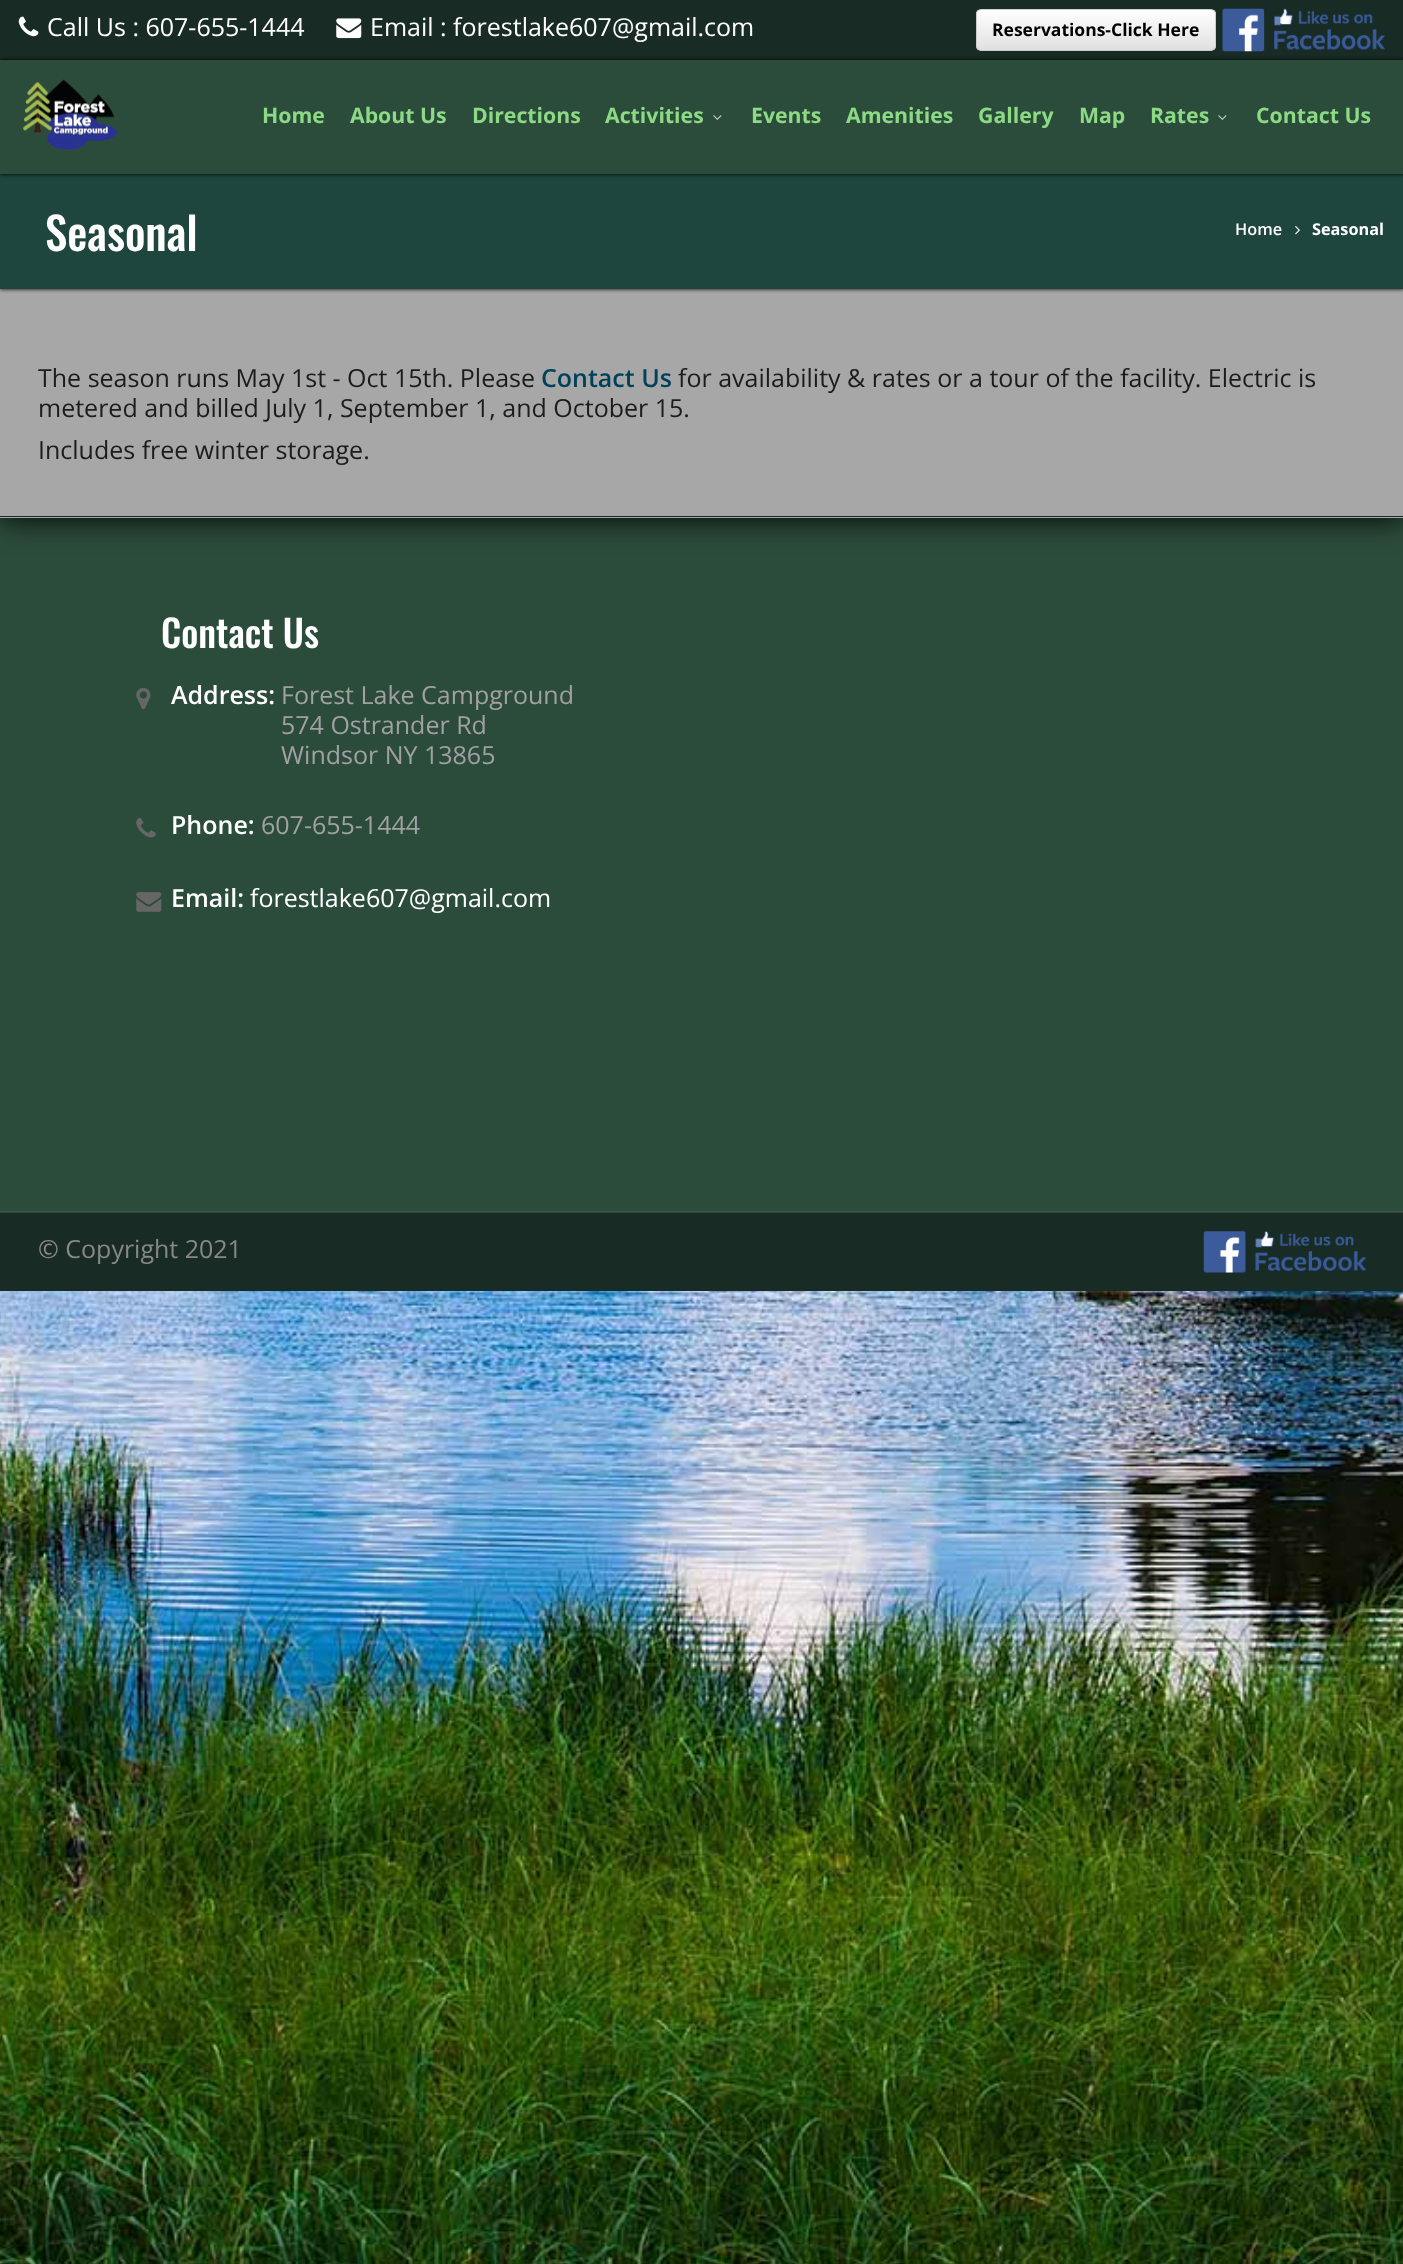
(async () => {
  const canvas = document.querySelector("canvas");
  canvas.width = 1403;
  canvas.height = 2264;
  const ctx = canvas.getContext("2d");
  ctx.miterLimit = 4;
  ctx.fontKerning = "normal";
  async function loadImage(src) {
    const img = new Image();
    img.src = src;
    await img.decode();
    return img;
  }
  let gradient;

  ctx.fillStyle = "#ffffff";
  ctx.fillRect(0, 0, 1403, 2264);
  ctx.drawImage(await loadImage("img/1.png"), 0, 1291, 1403, 973);
  ctx.fillStyle = "#2c4c3b";
  ctx.fillRect(0, 518, 1403, 695);
  ctx.fillStyle = "#000000";
  ctx.filter = "blur(15.5px)";
  ctx.beginPath();
  ctx.rect(0, 0, 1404, 518);
  ctx.fill();
  ctx.filter = "none";
  ctx.fillStyle = "#182c25";
  ctx.fillRect(0, 0, 1403, 60);
  ctx.drawImage(await loadImage("img/2.png"), 18, 16, 21, 21);
  ctx.drawImage(await loadImage("img/3.png"), 336, 18, 26, 21);
  ctx.save();
  ctx.beginPath();
  ctx.roundRect(976, 9, 240, 42, 5);
  ctx.clip();
  gradient = ctx.createLinearGradient(1096, 10, 1096, 50);
  gradient.addColorStop(0, "#ffffff");
  gradient.addColorStop(1, "#e0e0e0");
  ctx.fillStyle = gradient;
  ctx.fillRect(976, 10, 240, 40);
  ctx.restore();
  ctx.beginPath();
  ctx.roundRect(976.5, 9.5, 239, 41, 4.5);
  ctx.strokeStyle = "#cccccc";
  ctx.stroke();
  ctx.drawImage(await loadImage("img/4.png"), 1222, 8, 163, 44);
  ctx.fillStyle = "#a7a7a7";
  ctx.fillRect(0, 289, 1403, 229);
  ctx.fillStyle = "#000000";
  ctx.filter = "blur(2px)";
  ctx.beginPath();
  ctx.rect(0, 174, 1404, 115);
  ctx.fill();
  ctx.filter = "none";
  ctx.fillStyle = "#1e453e";
  ctx.fillRect(0, 174, 1403, 115);
  ctx.fillStyle = "#000000";
  ctx.filter = "blur(2px)";
  ctx.beginPath();
  ctx.rect(0, 60, 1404, 114);
  ctx.fill();
  ctx.filter = "none";
  ctx.fillStyle = "#2c4c3b";
  ctx.fillRect(0, 60, 1403, 114);
  ctx.drawImage(await loadImage("img/5.png"), 23, 79, 94, 72);
  ctx.drawImage(await loadImage("img/6.png"), 713, 115, 9, 5);
  ctx.drawImage(await loadImage("img/6.png"), 1218, 115, 9, 5);
  ctx.fillStyle = "#182c25";
  ctx.fillRect(0, 516, 1403, 1);
  ctx.drawImage(await loadImage("img/7.png"), 1295, 226, 5, 9);
  ctx.fillStyle = "#414f5a";
  ctx.fillRect(0, 1211, 1403, 1);
  ctx.drawImage(await loadImage("img/8.png"), 136, 687, 15, 23);
  ctx.drawImage(await loadImage("img/9.png"), 136, 817, 20, 21);
  ctx.drawImage(await loadImage("img/10.png"), 136, 892, 26, 20);
  ctx.fillStyle = "#182c25";
  ctx.fillRect(0, 1213, 1403, 78);
  ctx.drawImage(await loadImage("img/11.png"), 1203, 1231, 164, 42);
  ctx.font = "25px Open Sans";
  ctx.fillStyle = "#ffffff";
  ctx.fillText("Call Us : 607-655-1444", 47, 36);
  ctx.fillText("Email : forestlake607@gmail.com", 370, 36);
  ctx.font = "bold 17.5px Open Sans";
  ctx.fillStyle = "#000000";
  ctx.fillText("Reservations-Click Here", 992, 36);
  ctx.font = "bold 21.25px Open Sans";
  ctx.fillStyle = "#8cda84";
  for (const [text, x, y] of [
    ["Home", 262, 123],
    ["About Us", 350, 123],
    ["Directions", 472, 123],
    ["Activities", 605, 123],
    ["Events", 751, 123],
    ["Amenities", 846, 123],
    ["Gallery", 978, 123],
    ["Map", 1079, 123],
    ["Rates", 1150, 123],
    ["Contact Us", 1256, 123],
  ]) {
    ctx.fillText(text, x, y);
  }
  ctx.font = "500 45px Oswald";
  ctx.fillStyle = "#ffffff";
  ctx.fillText("Seasonal", 45, 251);
  ctx.font = "600 16.25px Open Sans";
  ctx.fillText("Home", 1235, 235);
  ctx.font = "bold 16.25px Open Sans";
  ctx.fillText("Seasonal", 1312, 235);
  ctx.font = "25px Open Sans";
  ctx.fillStyle = "#1c1c1c";
  ctx.fillText("The season runs May 1st - Oct 15th. Please", 38, 387);
  ctx.font = "600 25px Open Sans";
  ctx.fillStyle = "#00415a";
  ctx.fillText("Contact Us", 541, 387);
  ctx.font = "25px Open Sans";
  ctx.fillStyle = "#1c1c1c";
  for (const [text, x, y] of [
    ["for availability & rates or a tour of the facility. Electric is", 678, 387],
    ["metered and billed July 1, September 1, and October 15.", 38, 417],
    ["Includes free winter storage.", 38, 459],
  ]) {
    ctx.fillText(text, x, y);
  }
  ctx.font = "500 37.5px Oswald";
  ctx.fillStyle = "#ffffff";
  ctx.fillText("Contact Us", 161, 648);
  ctx.font = "600 25px Open Sans";
  ctx.fillText("Address:", 171, 704);
  ctx.font = "25px Open Sans";
  ctx.fillStyle = "#a1a1a1";
  for (const [text, x, y] of [
    ["Forest Lake Campground", 281, 704],
    ["574 Ostrander Rd", 281, 734],
    ["Windsor NY 13865", 281, 764],
  ]) {
    ctx.fillText(text, x, y);
  }
  ctx.font = "600 25px Open Sans";
  ctx.fillStyle = "#ffffff";
  ctx.fillText("Phone:", 171, 834);
  ctx.font = "25px Open Sans";
  ctx.fillStyle = "#a1a1a1";
  ctx.fillText("607-655-1444", 261, 834);
  ctx.font = "600 25px Open Sans";
  ctx.fillStyle = "#ffffff";
  ctx.fillText("Email:", 171, 907);
  ctx.font = "25px Open Sans";
  ctx.fillText("forestlake607@gmail.com", 250, 907);
  ctx.fillStyle = "#888888";
  ctx.fillText("© Copyright 2021", 38, 1258);
})();
